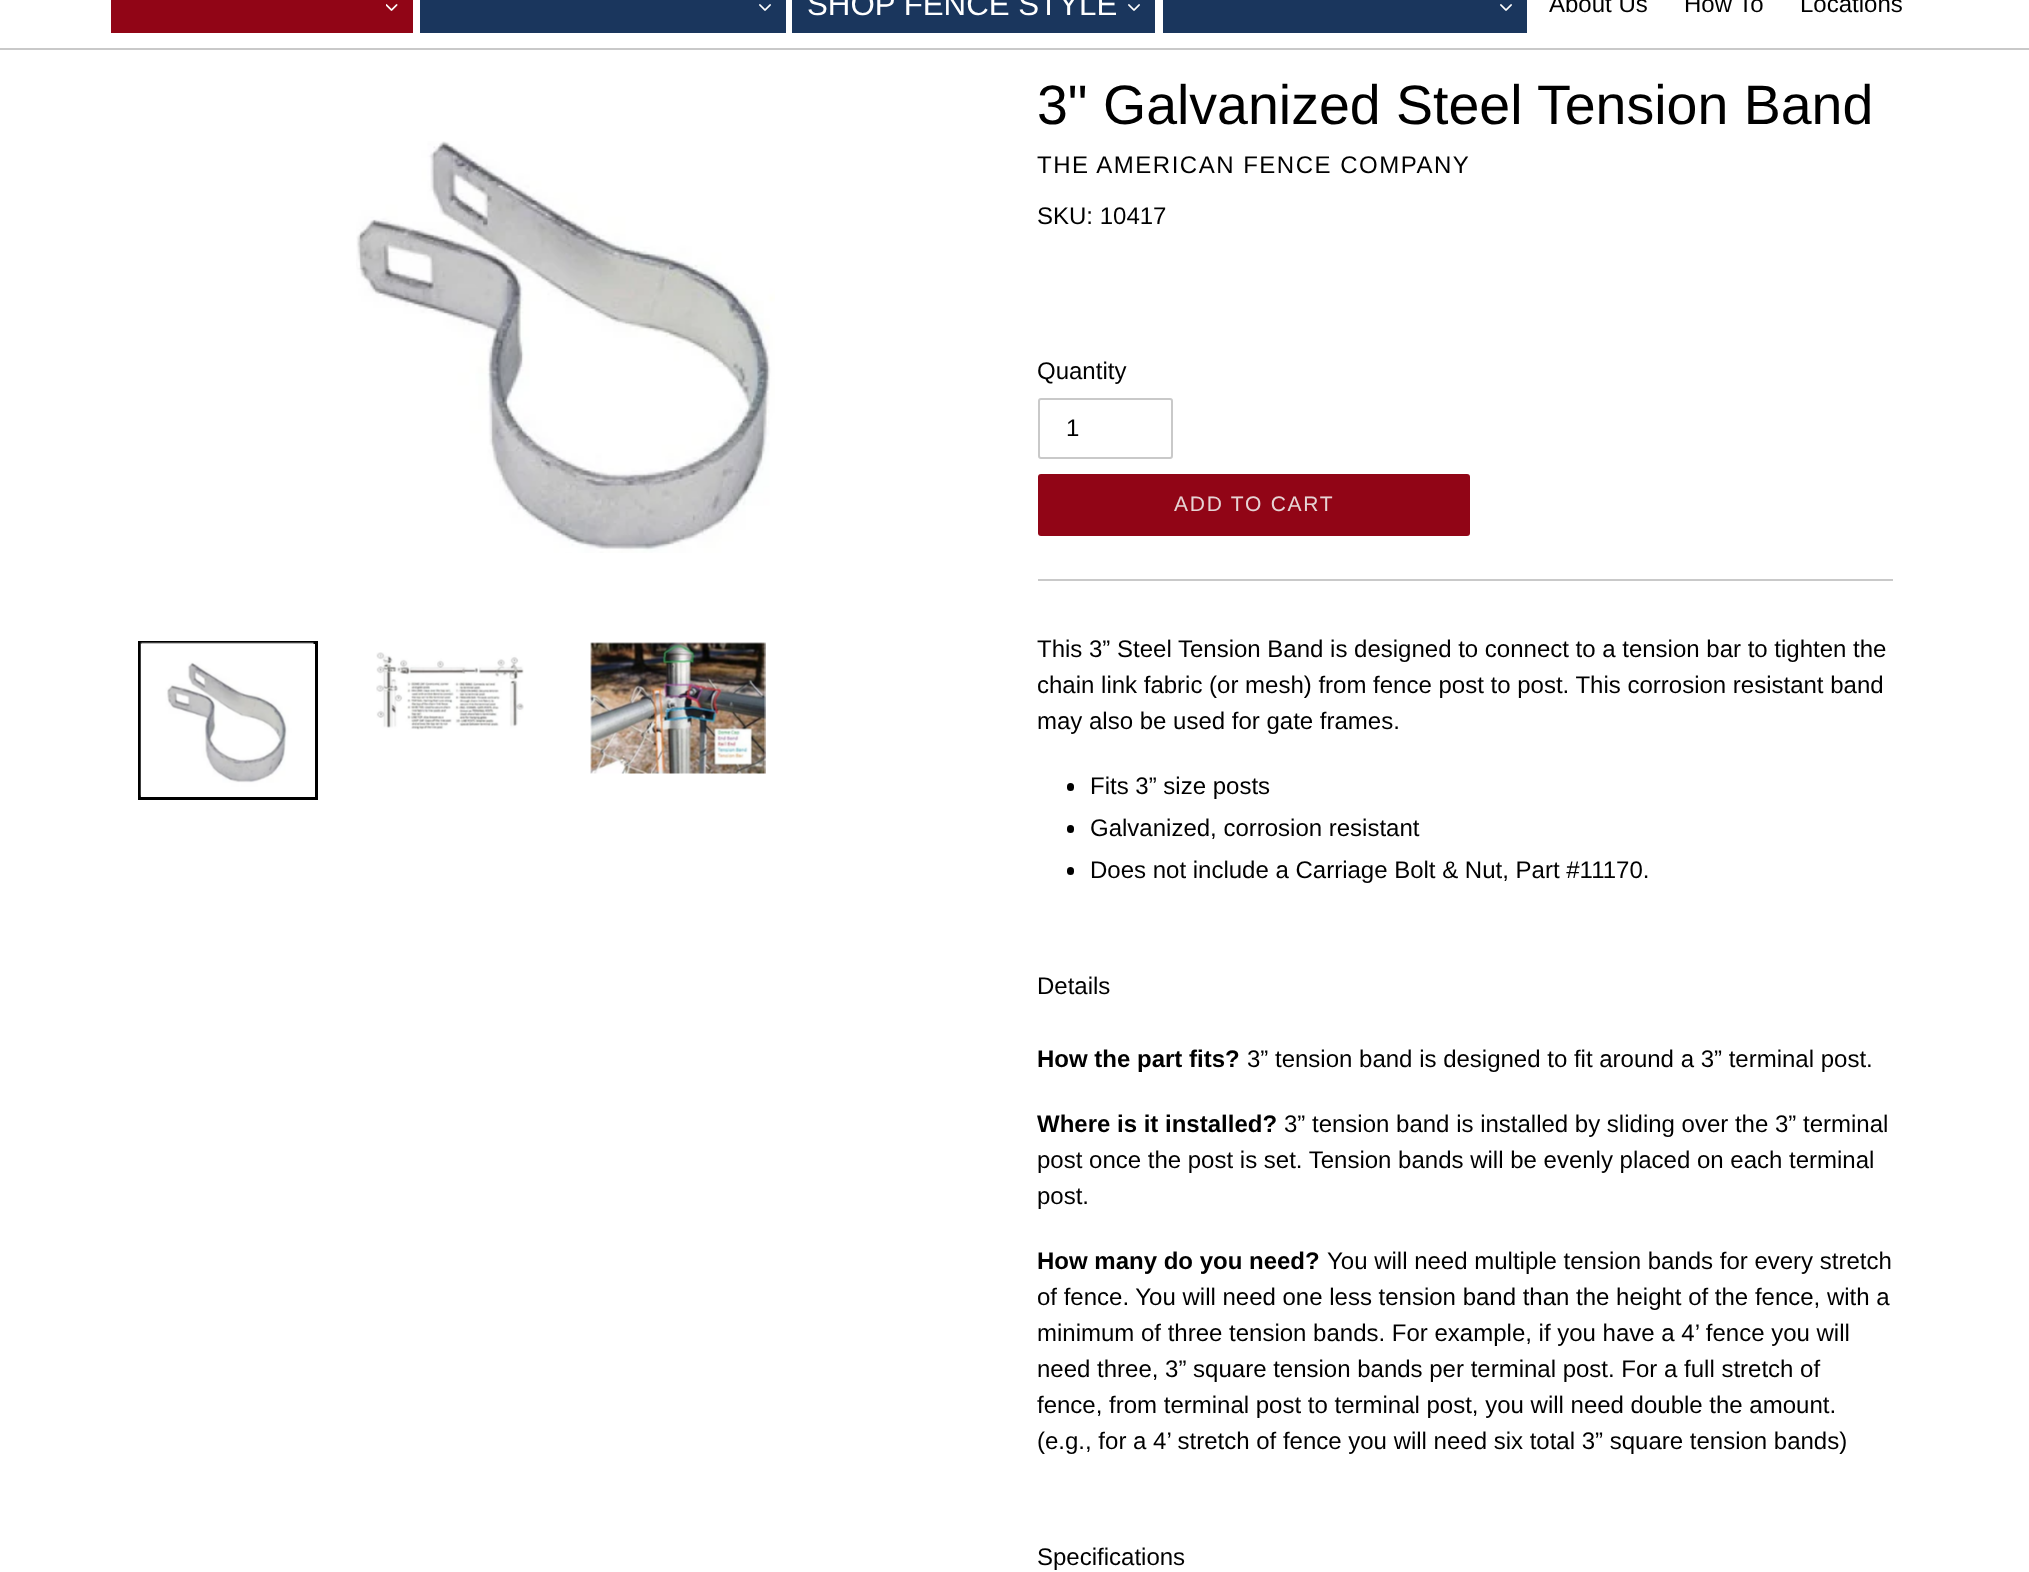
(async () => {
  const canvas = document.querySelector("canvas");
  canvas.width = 2029;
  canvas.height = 1572;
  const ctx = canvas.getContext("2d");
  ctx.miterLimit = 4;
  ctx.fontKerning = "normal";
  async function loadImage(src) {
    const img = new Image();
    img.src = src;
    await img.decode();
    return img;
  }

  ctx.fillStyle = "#ffffff";
  ctx.fillRect(0, 0, 2029, 1572);
  ctx.fillStyle = "#c9c9c9";
  ctx.fillRect(0, 48, 2029, 2);
  ctx.fillStyle = "#910516";
  ctx.fillRect(111, 0, 302, 33);
  ctx.drawImage(await loadImage("img/1.png"), 386, 4, 12, 7);
  ctx.fillStyle = "#1a365d";
  ctx.fillRect(420, 0, 366, 33);
  ctx.drawImage(await loadImage("img/2.png"), 759, 4, 12, 7);
  ctx.fillRect(792, 0, 363, 33);
  ctx.drawImage(await loadImage("img/2.png"), 1128, 4, 12, 7);
  ctx.fillRect(1163, 0, 364, 33);
  ctx.drawImage(await loadImage("img/2.png"), 1500, 4, 12, 7);
  ctx.drawImage(await loadImage("img/3.png"), 356, 141, 419, 412);
  ctx.strokeStyle = "#000000";
  ctx.lineWidth = 3;
  ctx.strokeRect(139.5, 642.5, 177, 156);
  ctx.drawImage(await loadImage("img/4.png"), 140, 642, 174, 155);
  ctx.drawImage(await loadImage("img/5.png"), 376, 652, 148, 78);
  ctx.drawImage(await loadImage("img/6.png"), 590, 642, 176, 132);
  ctx.beginPath();
  ctx.roundRect(1039, 399, 133, 59, 2);
  ctx.strokeStyle = "#c9c9c9";
  ctx.lineWidth = 2;
  ctx.stroke();
  ctx.fillStyle = "#910516";
  ctx.beginPath();
  ctx.roundRect(1038, 474, 432, 62, 3);
  ctx.fill();
  ctx.fillStyle = "#c9c9c9";
  ctx.fillRect(1038, 579, 855, 2);
  ctx.fillStyle = "#000000";
  ctx.beginPath();
  ctx.roundRect(1067, 783, 7, 8, 3.5);
  ctx.fill();
  ctx.beginPath();
  ctx.roundRect(1067, 825, 7, 8, 3.5);
  ctx.fill();
  ctx.beginPath();
  ctx.roundRect(1067, 867, 7, 8, 3.5);
  ctx.fill();
  ctx.font = "31.25px Liberation Sans";
  ctx.fillStyle = "#ffffff";
  ctx.fillText("SHOP FENCE STYLE", 807, 15);
  ctx.font = "24px Liberation Sans";
  ctx.fillStyle = "#000000";
  for (const [text, x, y] of [
    ["About Us", 1549, 12],
    ["How To", 1684, 12],
    ["Locations", 1800, 12],
  ]) {
    ctx.fillText(text, x, y);
  }
  ctx.font = "55.5px Liberation Sans";
  ctx.fillText("3\" Galvanized Steel Tension Band", 1037, 124);
  ctx.letterSpacing = "1.5px";
  ctx.font = "24px Liberation Sans";
  ctx.fillText("THE AMERICAN FENCE COMPANY", 1037, 173);
  ctx.letterSpacing = "0px";
  for (const [text, x, y] of [
    ["SKU: 10417", 1037, 224],
    ["Quantity", 1037, 379],
    ["1", 1066, 436],
  ]) {
    ctx.fillText(text, x, y);
  }
  ctx.letterSpacing = "1.75px";
  ctx.font = "21px Liberation Sans";
  ctx.fillStyle = "#e6d4d4";
  ctx.fillText("ADD TO CART", 1174, 511);
  ctx.letterSpacing = "0px";
  ctx.font = "24px Liberation Sans";
  ctx.fillStyle = "#000000";
  for (const [text, x, y] of [
    ["This 3” Steel Tension Band is designed to connect to a tension bar to tighten the", 1037, 657],
    ["chain link fabric (or mesh) from fence post to post. This corrosion resistant band", 1037, 693],
    ["may also be used for gate frames.", 1037, 729],
    ["Fits 3” size posts", 1090, 794],
    ["Galvanized, corrosion resistant", 1090, 836],
    ["Does not include a Carriage Bolt & Nut, Part #11170.", 1090, 878],
    ["Details", 1037, 994],
  ]) {
    ctx.fillText(text, x, y);
  }
  ctx.font = "bold 24px Liberation Sans";
  ctx.fillText("How the part fits?", 1037, 1067);
  ctx.font = "24px Liberation Sans";
  ctx.fillText("3” tension band is designed to fit around a 3” terminal post.", 1247, 1067);
  ctx.font = "bold 24px Liberation Sans";
  ctx.fillText("Where is it installed?", 1037, 1132);
  ctx.font = "24px Liberation Sans";
  for (const [text, x, y] of [
    ["3” tension band is installed by sliding over the 3” terminal", 1284, 1132],
    ["post once the post is set. Tension bands will be evenly placed on each terminal", 1037, 1168],
    ["post.", 1037, 1204],
  ]) {
    ctx.fillText(text, x, y);
  }
  ctx.font = "bold 24px Liberation Sans";
  ctx.fillText("How many do you need?", 1037, 1269);
  ctx.font = "24px Liberation Sans";
  for (const [text, x, y] of [
    ["You will need multiple tension bands for every stretch", 1327, 1269],
    ["of fence. You will need one less tension band than the height of the fence, with a", 1037, 1305],
    ["minimum of three tension bands. For example, if you have a 4’ fence you will", 1037, 1341],
    ["need three, 3” square tension bands per terminal post. For a full stretch of", 1037, 1377],
    ["fence, from terminal post to terminal post, you will need double the amount.", 1037, 1413],
    ["(e.g., for a 4’ stretch of fence you will need six total 3” square tension bands)", 1037, 1449],
    ["Specifications", 1037, 1565],
  ]) {
    ctx.fillText(text, x, y);
  }
})();
